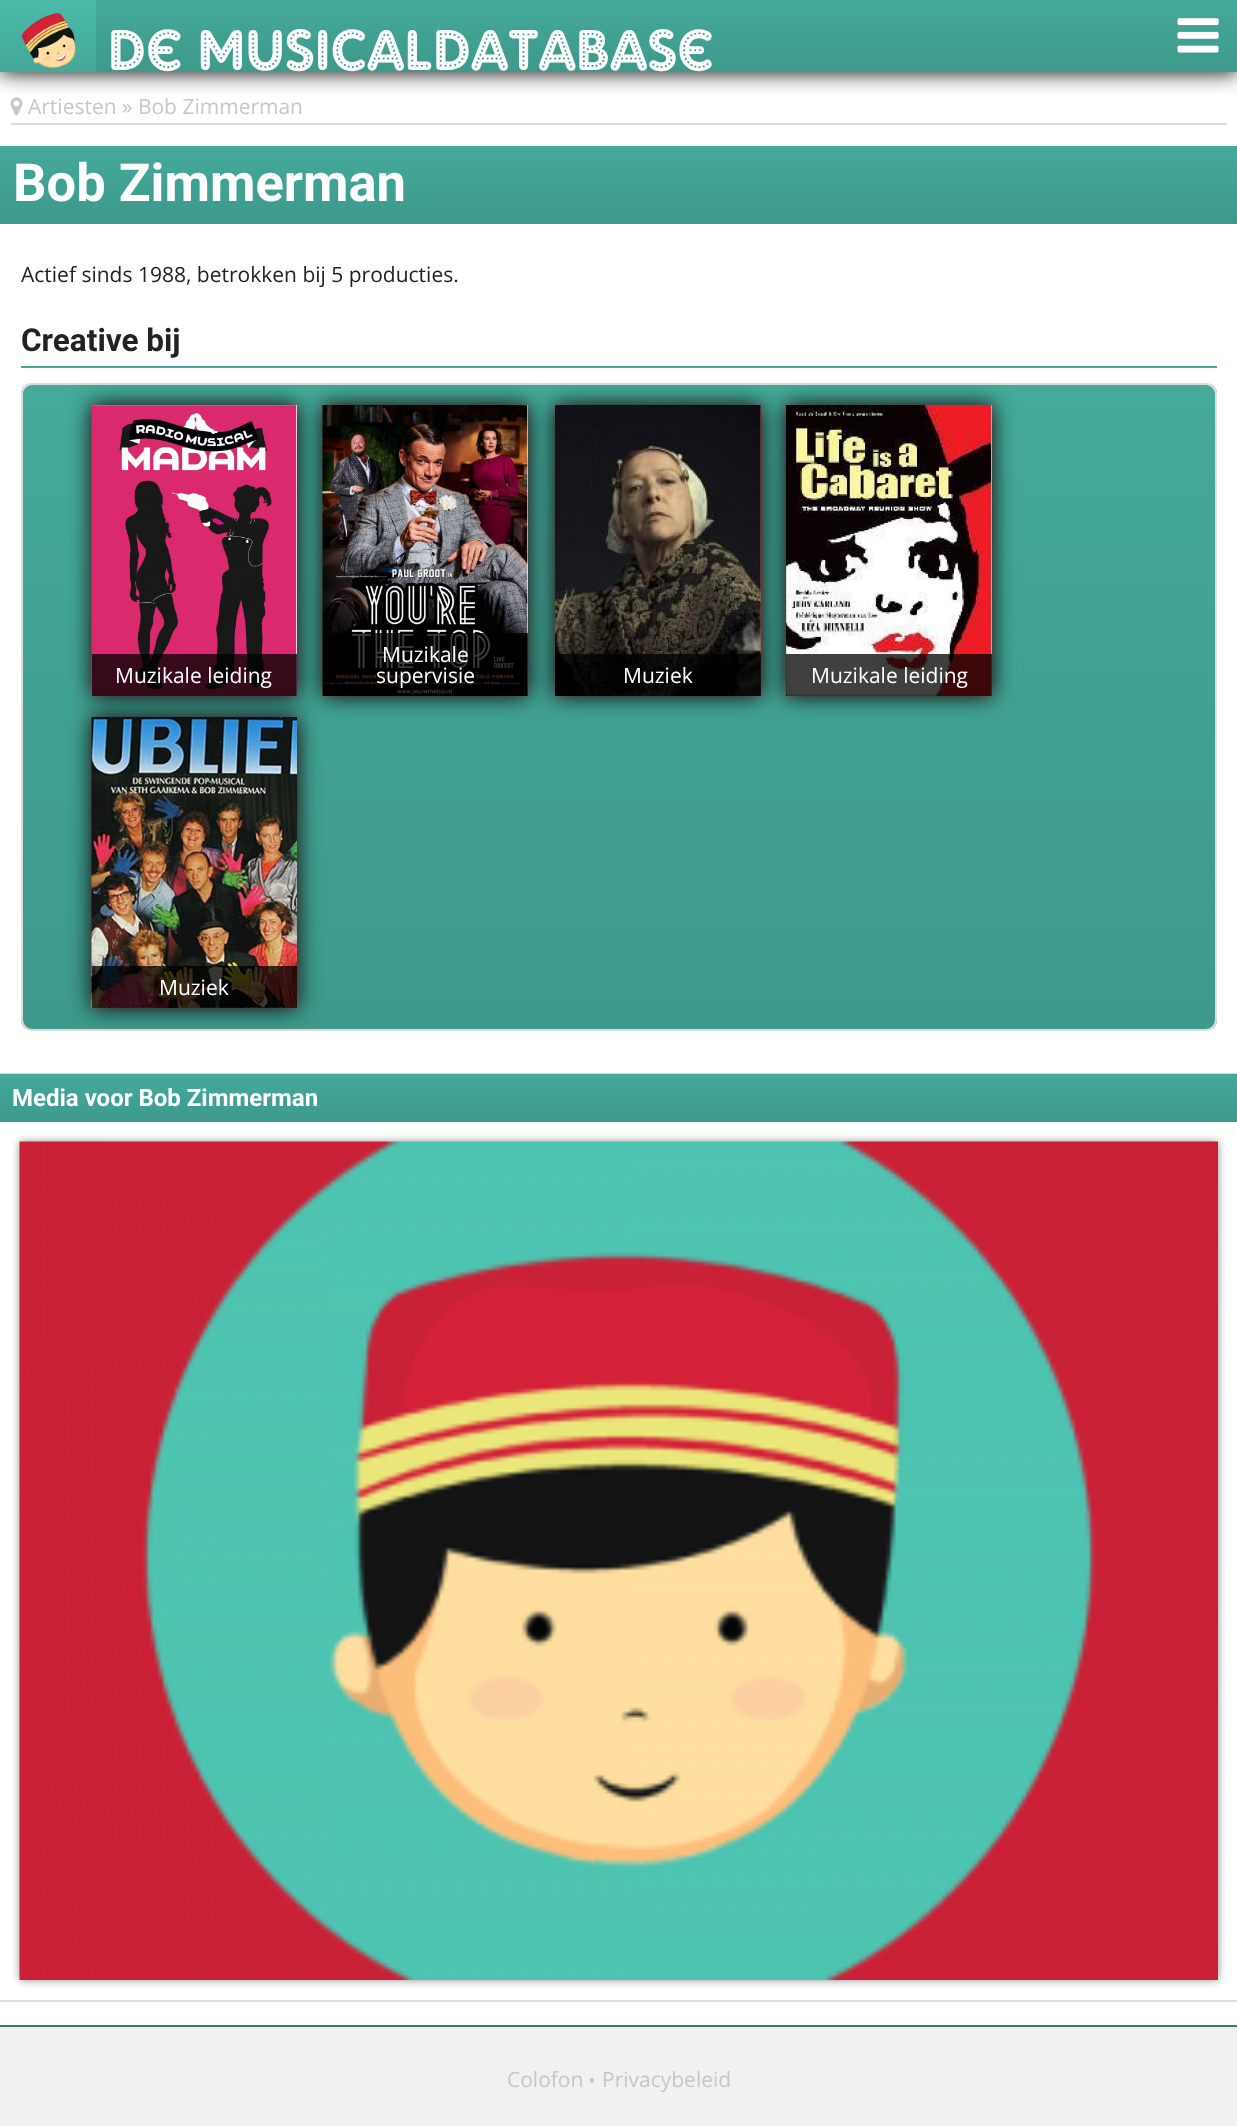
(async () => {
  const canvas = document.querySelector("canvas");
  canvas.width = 1237;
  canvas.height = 2126;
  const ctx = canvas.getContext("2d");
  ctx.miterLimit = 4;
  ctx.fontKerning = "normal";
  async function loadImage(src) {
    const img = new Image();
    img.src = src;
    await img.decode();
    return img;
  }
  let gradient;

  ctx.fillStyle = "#f1f1f1";
  ctx.fillRect(0, 0, 1237, 2126);
  ctx.fillStyle = "#ffffff";
  ctx.fillRect(0, 72, 1237, 1953);
  ctx.drawImage(await loadImage("img/3.png"), 10, 97, 13, 19);
  ctx.fillStyle = "#000000";
  ctx.filter = "blur(11px)";
  ctx.beginPath();
  ctx.rect(0, 0, 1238, 72);
  ctx.fill();
  ctx.filter = "none";
  gradient = ctx.createLinearGradient(619, 0, 619, 72);
  gradient.addColorStop(0, "#44aa9a");
  gradient.addColorStop(1, "#3d998b");
  ctx.fillStyle = gradient;
  ctx.fillRect(96, 0, 1141, 72);
  gradient = ctx.createLinearGradient(48, 0, 48, 72);
  gradient.addColorStop(0, "#4bbba9");
  gradient.addColorStop(1, "#43a898");
  ctx.fillStyle = gradient;
  ctx.fillRect(0, 0, 96, 72);
  ctx.drawImage(await loadImage("img/1.png"), 21, 12, 55, 57);
  ctx.drawImage(await loadImage("img/2.png"), 1177, 18, 42, 35);
  ctx.fillStyle = "#327c70";
  ctx.fillRect(0, 2025, 1237, 2);
  ctx.fillStyle = "#dddddd";
  ctx.fillRect(11, 123, 1216, 2);
  gradient = ctx.createLinearGradient(619, 145, 619, 224);
  gradient.addColorStop(0, "#44aa9a");
  gradient.addColorStop(1, "#3d998b");
  ctx.fillStyle = gradient;
  ctx.fillRect(0, 146, 1237, 78);
  ctx.fillStyle = "#44aa9a";
  ctx.fillRect(21, 366, 1196, 2);
  ctx.save();
  ctx.beginPath();
  ctx.roundRect(21, 383, 1196, 648, 11);
  ctx.clip();
  gradient = ctx.createLinearGradient(619, 384, 619, 1029);
  gradient.addColorStop(0, "#44aa9a");
  gradient.addColorStop(1, "#3d998b");
  ctx.fillStyle = gradient;
  ctx.fillRect(21, 384, 1196, 645);
  ctx.restore();
  ctx.beginPath();
  ctx.roundRect(22, 384, 1194, 646, 10);
  ctx.strokeStyle = "#dddddd";
  ctx.lineWidth = 2;
  ctx.stroke();
  ctx.fillStyle = "#888888";
  ctx.filter = "blur(4px)";
  ctx.beginPath();
  ctx.rect(92, 405, 205, 291);
  ctx.fill();
  ctx.filter = "none";
  ctx.fillStyle = "#000000";
  ctx.filter = "blur(11px)";
  ctx.beginPath();
  ctx.rect(92, 405, 205, 291);
  ctx.fill();
  ctx.filter = "none";
  ctx.drawImage(await loadImage("img/4.png"), 91, 405, 206, 291);
  ctx.fillStyle = "rgba(0, 0, 0, 0.75)";
  ctx.fillRect(92, 654, 205, 42);
  ctx.fillStyle = "#888888";
  ctx.filter = "blur(4px)";
  ctx.beginPath();
  ctx.rect(323, 405, 205, 291);
  ctx.fill();
  ctx.filter = "none";
  ctx.fillStyle = "#000000";
  ctx.filter = "blur(11px)";
  ctx.beginPath();
  ctx.rect(323, 405, 205, 291);
  ctx.fill();
  ctx.filter = "none";
  ctx.drawImage(await loadImage("img/5.png"), 322, 405, 206, 291);
  ctx.fillStyle = "rgba(0, 0, 0, 0.75)";
  ctx.fillRect(323, 633, 205, 63);
  ctx.fillStyle = "#888888";
  ctx.filter = "blur(4px)";
  ctx.beginPath();
  ctx.rect(555, 405, 206, 291);
  ctx.fill();
  ctx.filter = "none";
  ctx.fillStyle = "#000000";
  ctx.filter = "blur(11px)";
  ctx.beginPath();
  ctx.rect(555, 405, 206, 291);
  ctx.fill();
  ctx.filter = "none";
  ctx.fillStyle = "#c44548";
  ctx.fillRect(760, 405, 1, 291);
  ctx.drawImage(await loadImage("img/6.png"), 555, 405, 206, 291);
  ctx.fillStyle = "rgba(0, 0, 0, 0.75)";
  ctx.fillRect(555, 654, 206, 42);
  ctx.fillStyle = "#888888";
  ctx.filter = "blur(4px)";
  ctx.beginPath();
  ctx.rect(786, 405, 206, 291);
  ctx.fill();
  ctx.filter = "none";
  ctx.fillStyle = "#000000";
  ctx.filter = "blur(11px)";
  ctx.beginPath();
  ctx.rect(786, 405, 206, 291);
  ctx.fill();
  ctx.filter = "none";
  ctx.fillStyle = "#c44548";
  ctx.fillRect(991, 405, 1, 291);
  ctx.drawImage(await loadImage("img/7.png"), 786, 405, 206, 291);
  ctx.fillStyle = "rgba(0, 0, 0, 0.75)";
  ctx.fillRect(786, 654, 206, 42);
  ctx.fillStyle = "#888888";
  ctx.filter = "blur(4px)";
  ctx.beginPath();
  ctx.rect(92, 717, 205, 291);
  ctx.fill();
  ctx.filter = "none";
  ctx.fillStyle = "#000000";
  ctx.filter = "blur(11px)";
  ctx.beginPath();
  ctx.rect(92, 717, 205, 291);
  ctx.fill();
  ctx.filter = "none";
  ctx.drawImage(await loadImage("img/8.png"), 91, 717, 206, 291);
  for (const [x, y, w, h, color] of [
    [92, 966, 205, 42, "rgba(0, 0, 0, 0.75)"],
    [0, 1073, 1237, 1, "#dddddd"],
    [0, 2000, 1237, 2, "#dddddd"],
  ]) {
    ctx.fillStyle = color;
    ctx.fillRect(x, y, w, h);
  }
  gradient = ctx.createLinearGradient(619, 1074, 619, 1122);
  gradient.addColorStop(0, "#44aa9a");
  gradient.addColorStop(1, "#3d998b");
  ctx.fillStyle = gradient;
  ctx.fillRect(0, 1074, 1237, 48);
  ctx.fillStyle = "#888888";
  ctx.filter = "blur(4px)";
  ctx.beginPath();
  ctx.rect(20, 1142, 1198, 838);
  ctx.fill();
  ctx.filter = "none";
  ctx.drawImage(await loadImage("img/9.png"), 19, 1141, 1199, 839);
  ctx.font = "300 57.6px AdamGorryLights";
  ctx.fillStyle = "#ffffff";
  ctx.fillText("De Musicaldatabase", 108, 70);
  ctx.font = "21px Open Sans";
  ctx.fillStyle = "#c7c7c7";
  ctx.fillText("Artiesten » Bob Zimmerman", 28, 114);
  ctx.font = "bold 52.5px Roboto";
  ctx.fillStyle = "#ffffff";
  ctx.fillText("Bob Zimmerman", 13, 201);
  ctx.font = "21px Open Sans";
  ctx.fillStyle = "#222222";
  ctx.fillText("Actief sinds 1988, betrokken bij 5 producties.", 21, 282);
  ctx.font = "bold 31.5px Roboto";
  ctx.fillText("Creative bij", 21, 351);
  ctx.font = "21px Open Sans";
  ctx.fillStyle = "#ffffff";
  for (const [text, x, y] of [
    ["Muzikale leiding", 115, 683],
    ["Muzikale", 382, 662],
    ["supervisie", 376, 683],
    ["Muziek", 623, 683],
    ["Muzikale leiding", 811, 683],
    ["Muziek", 159, 995],
  ]) {
    ctx.fillText(text, x, y);
  }
  ctx.font = "bold 24px Roboto";
  ctx.fillText("Media voor Bob Zimmerman", 12, 1106);
  ctx.font = "21px Open Sans";
  ctx.fillStyle = "#c7c7c7";
  for (const [text, x, y] of [
    ["Colofon", 507, 2087],
    ["•", 588, 2088],
    ["Privacybeleid", 602, 2087],
  ]) {
    ctx.fillText(text, x, y);
  }
})();
